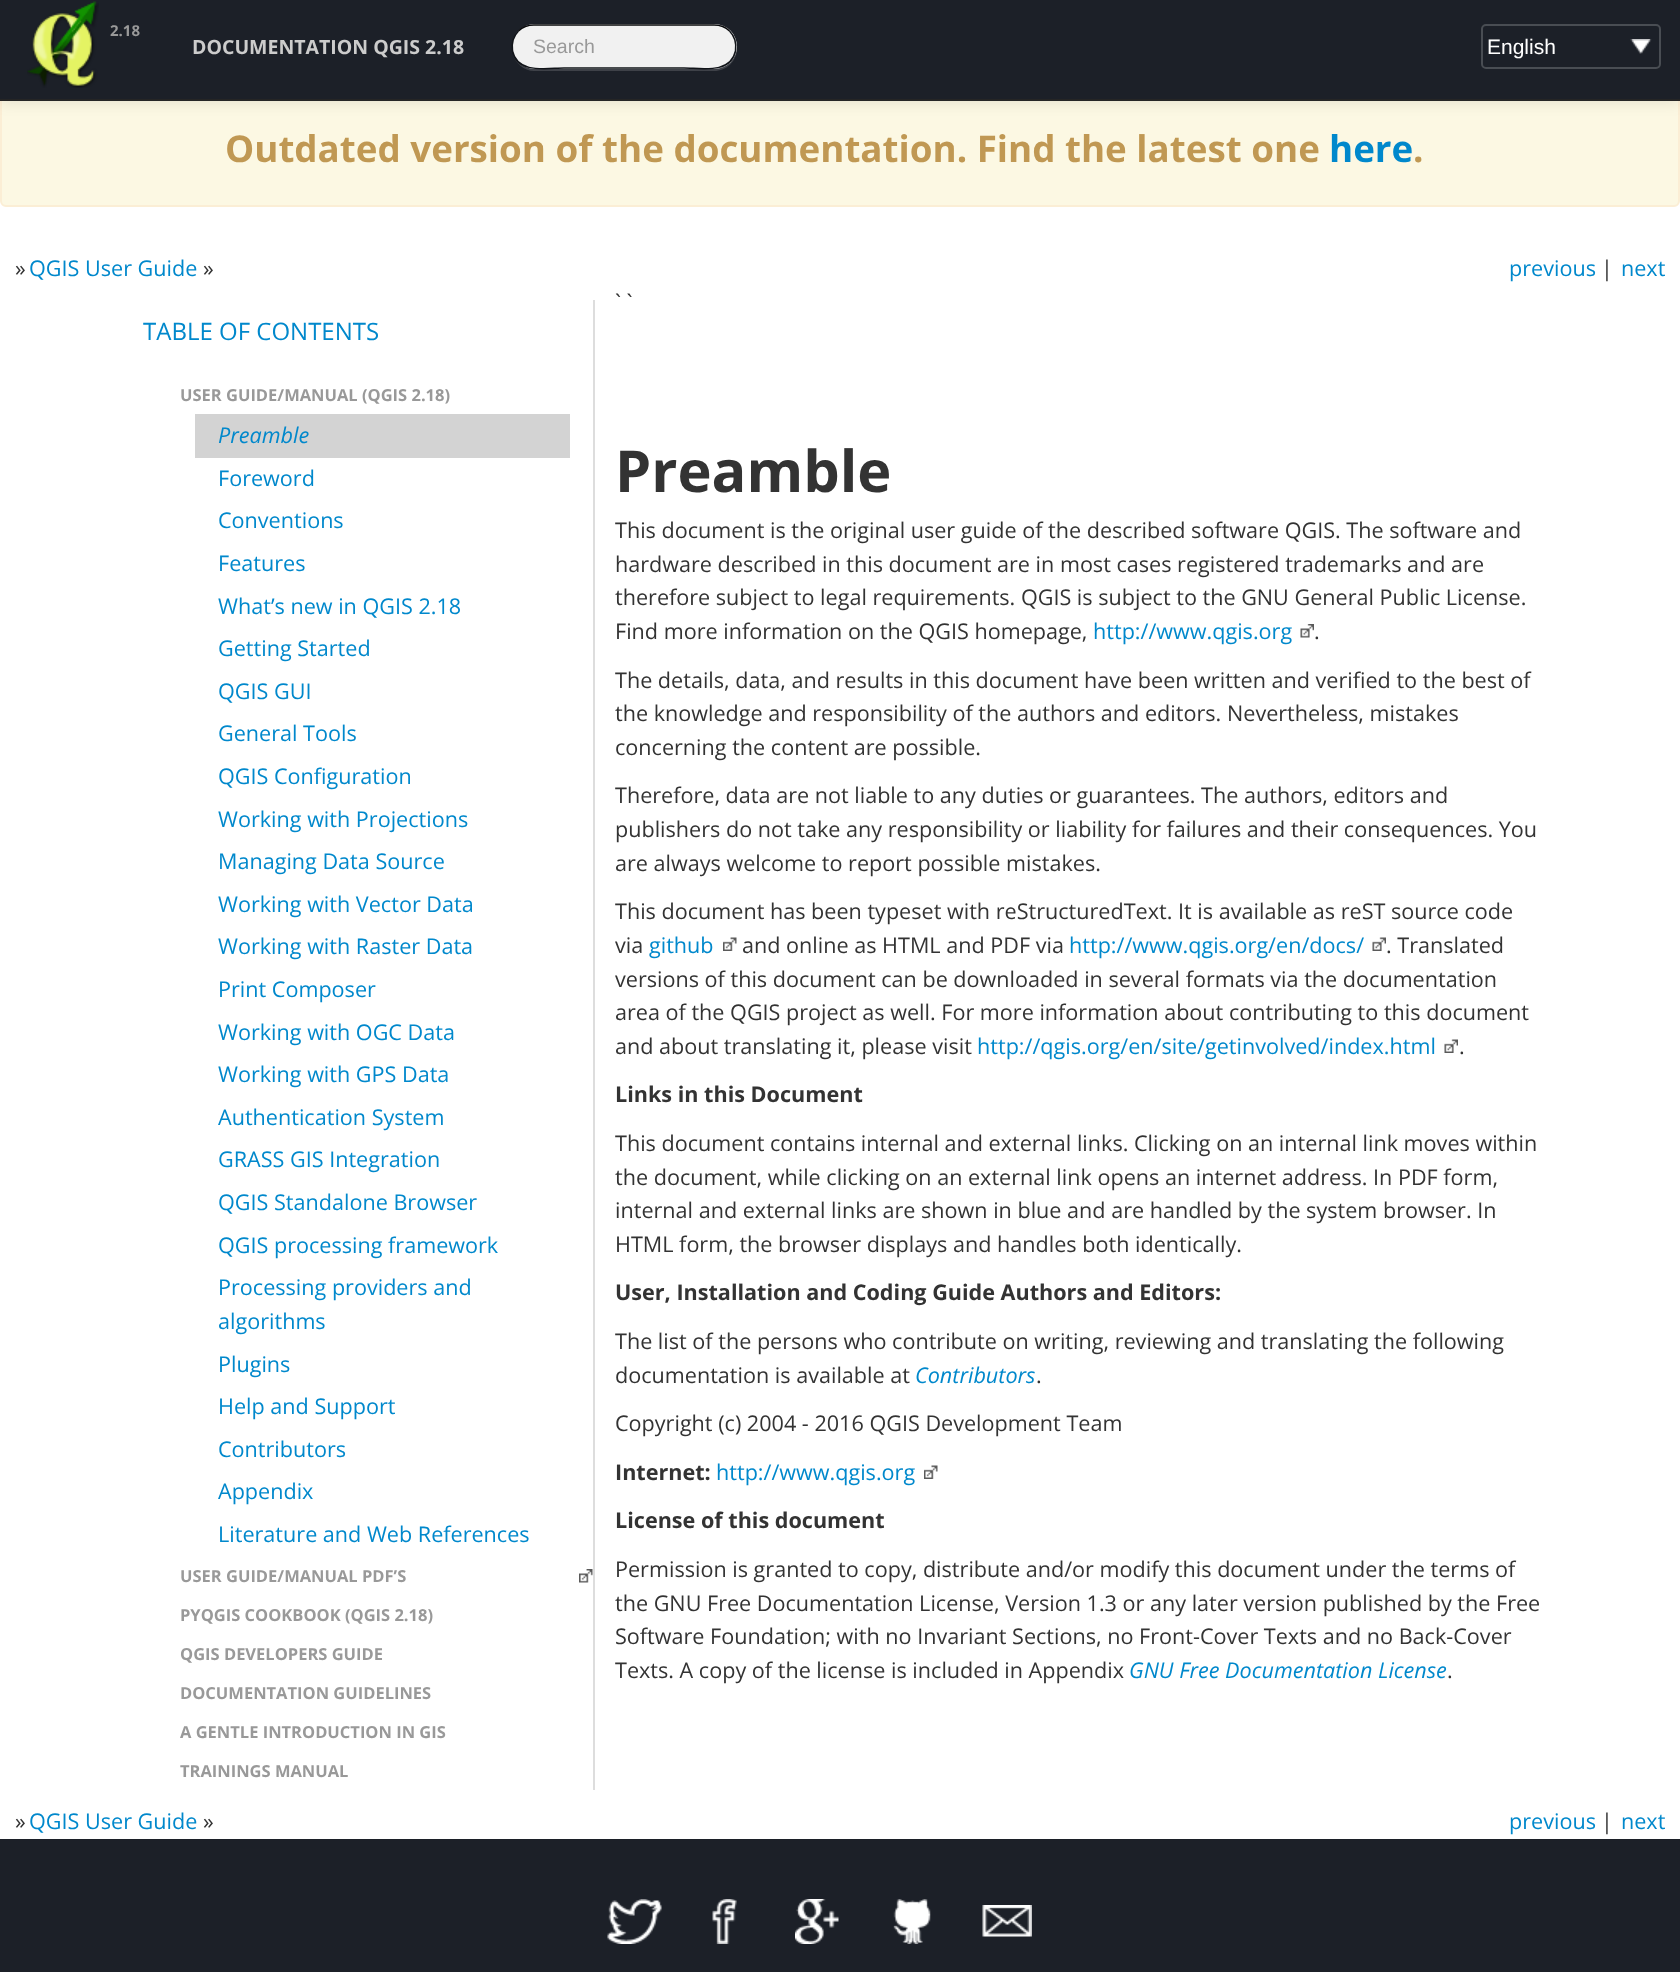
(async () => {
  const canvas = document.querySelector("canvas");
  canvas.width = 1680;
  canvas.height = 1972;
  const ctx = canvas.getContext("2d");
  ctx.miterLimit = 4;
  ctx.fontKerning = "normal";
  async function loadImage(src) {
    const img = new Image();
    img.src = src;
    await img.decode();
    return img;
  }
  let path;

  ctx.fillStyle = "#ffffff";
  ctx.fillRect(0, 0, 1680, 1972);
  ctx.fillStyle = "#fcf8e3";
  ctx.beginPath();
  ctx.roundRect(1, 91, 1678, 115, 5);
  ctx.fill();
  ctx.strokeStyle = "#fbeed5";
  ctx.lineWidth = 2;
  ctx.stroke();
  ctx.fillStyle = "rgba(0, 0, 0, 0.1)";
  ctx.filter = "blur(7.5px)";
  ctx.beginPath();
  ctx.rect(0, 2, 1680, 100);
  ctx.fill();
  ctx.filter = "none";
  ctx.fillStyle = "#1c2028";
  ctx.fillRect(0, 0, 1680, 99);
  ctx.fillStyle = "#252525";
  ctx.fillRect(0, 99, 1680, 2);
  ctx.drawImage(await loadImage("img/1.png"), 27, 1, 72, 87);
  ctx.fillStyle = "#3e4148";
  path = new Path2D("M512 53C515 63 524 71 534 71H714C727 71 737 61 737 48L736 42V46C736 59 726 69 714 69H534C524 69 515 62 512 53Z");
  ctx.fill(path);
  ctx.fillStyle = "#f1f1f1";
  ctx.beginPath();
  ctx.roundRect(512, 24, 225, 45, 22.5);
  ctx.fill();
  path = new Path2D("M518.5 31C522.5 27 528 25 534 25H714C720 25 725.5 27 729.5 31");
  ctx.strokeStyle = "#07080a";
  ctx.lineWidth = 1.5;
  ctx.stroke(path);
  path = new Path2D("M729.5 31C734.5 36 736.5 43.5 735.5 51C730.5 74.5 700.5 68 684 68H564C547.5 68 517.5 74.5 512.5 51C511.5 43.5 513.5 36 518.5 31");
  ctx.strokeStyle = "#111419";
  ctx.stroke(path);
  ctx.drawImage(await loadImage("img/2.png"), 1630, 39, 22, 15);
  ctx.beginPath();
  ctx.roundRect(1482, 25, 178, 43, 4);
  ctx.strokeStyle = "#494d53";
  ctx.lineWidth = 2;
  ctx.stroke();
  ctx.fillStyle = "#dddddd";
  ctx.fillRect(593, 300, 2, 1490);
  ctx.fillStyle = "#d3d3d3";
  ctx.fillRect(195, 414, 375, 44);
  ctx.drawImage(await loadImage("img/3.png"), 579, 1569, 14, 14);
  ctx.drawImage(await loadImage("img/4.png"), 1300, 624, 14, 14);
  ctx.drawImage(await loadImage("img/5.png"), 723, 937, 14, 14);
  ctx.drawImage(await loadImage("img/6.png"), 1372, 937, 14, 14);
  ctx.drawImage(await loadImage("img/6.png"), 1444, 1039, 14, 14);
  ctx.drawImage(await loadImage("img/7.png"), 924, 1465, 14, 14);
  ctx.fillStyle = "#1c2028";
  ctx.fillRect(0, 1839, 1680, 133);
  ctx.drawImage(await loadImage("img/8.png"), 607, 1899, 55, 45);
  ctx.drawImage(await loadImage("img/9.png"), 712, 1899, 25, 45);
  ctx.drawImage(await loadImage("img/10.png"), 795, 1899, 44, 45);
  ctx.drawImage(await loadImage("img/11.png"), 893, 1899, 38, 45);
  ctx.drawImage(await loadImage("img/12.png"), 982, 1905, 50, 32);
  ctx.font = "bold 15px Open Sans";
  ctx.fillStyle = "#999999";
  ctx.fillText("2.18", 110, 36);
  ctx.font = "bold 19.5px Open Sans";
  ctx.fillStyle = "#cccccc";
  ctx.fillText("DOCUMENTATION QGIS 2.18", 192, 54);
  ctx.font = "19.5px Liberation Sans";
  ctx.fillStyle = "#999999";
  ctx.fillText("Search", 533, 53);
  ctx.font = "21px Liberation Sans";
  ctx.fillStyle = "#ffffff";
  ctx.fillText("English", 1487, 54);
  ctx.font = "bold 36.75px Open Sans";
  ctx.fillStyle = "#c09853";
  ctx.fillText("Outdated version of the documentation. Find the latest one", 225, 162);
  ctx.fillStyle = "#0088cc";
  ctx.fillText("here", 1329, 162);
  ctx.fillStyle = "#c09853";
  ctx.fillText(".", 1413, 162);
  ctx.font = "21.6px Open Sans";
  ctx.fillStyle = "#333333";
  ctx.fillText("»", 15, 276);
  ctx.fillStyle = "#0088cc";
  ctx.fillText("QGIS User Guide", 29, 276);
  ctx.fillStyle = "#333333";
  ctx.fillText("»", 203, 276);
  ctx.fillStyle = "#0088cc";
  ctx.fillText("previous", 1509, 276);
  ctx.fillStyle = "#333333";
  ctx.fillText("|", 1601, 276);
  ctx.fillStyle = "#0088cc";
  ctx.fillText("next", 1621, 276);
  ctx.font = "24px Open Sans";
  ctx.fillText("TABLE OF CONTENTS", 143, 340);
  ctx.font = "bold 16.5px Open Sans";
  ctx.fillStyle = "#999999";
  ctx.fillText("USER GUIDE/MANUAL (QGIS 2.18)", 180, 401);
  ctx.font = "italic 21.6px Open Sans";
  ctx.fillStyle = "#0088cc";
  ctx.fillText("Preamble", 218, 443);
  ctx.font = "21.6px Open Sans";
  for (const [text, x, y] of [
    ["Foreword", 218, 486],
    ["Conventions", 218, 528],
    ["Features", 218, 571],
    ["What’s new in QGIS 2.18", 218, 614],
    ["Getting Started", 218, 656],
    ["QGIS GUI", 218, 699],
    ["General Tools", 218, 741],
    ["QGIS Configuration", 218, 784],
    ["Working with Projections", 218, 827],
    ["Managing Data Source", 218, 869],
    ["Working with Vector Data", 218, 912],
    ["Working with Raster Data", 218, 954],
    ["Print Composer", 218, 997],
    ["Working with OGC Data", 218, 1040],
    ["Working with GPS Data", 218, 1082],
    ["Authentication System", 218, 1125],
    ["GRASS GIS Integration", 218, 1167],
    ["QGIS Standalone Browser", 218, 1210],
    ["QGIS processing framework", 218, 1253],
    ["Processing providers and", 218, 1295],
    ["algorithms", 218, 1329],
    ["Plugins", 218, 1372],
    ["Help and Support", 218, 1414],
    ["Contributors", 218, 1457],
    ["Appendix", 218, 1499],
    ["Literature and Web References", 218, 1542],
  ]) {
    ctx.fillText(text, x, y);
  }
  ctx.font = "bold 16.5px Open Sans";
  ctx.fillStyle = "#999999";
  for (const [text, x, y] of [
    ["USER GUIDE/MANUAL PDF’S", 180, 1582],
    ["PYQGIS COOKBOOK (QGIS 2.18)", 180, 1621],
    ["QGIS DEVELOPERS GUIDE", 180, 1660],
    ["DOCUMENTATION GUIDELINES", 180, 1699],
    ["A GENTLE INTRODUCTION IN GIS", 180, 1738],
    ["TRAININGS MANUAL", 180, 1777],
  ]) {
    ctx.fillText(text, x, y);
  }
  ctx.font = "21.6px Open Sans";
  ctx.fillStyle = "#333333";
  ctx.fillText("` `", 615, 310);
  ctx.font = "bold 57.75px Open Sans";
  ctx.fillText("Preamble", 615, 492);
  ctx.font = "21.6px Open Sans";
  for (const [text, x, y] of [
    ["This document is the original user guide of the described software QGIS. The software and", 615, 538],
    ["hardware described in this document are in most cases registered trademarks and are", 615, 572],
    ["therefore subject to legal requirements. QGIS is subject to the GNU General Public License.", 615, 605],
    ["Find more information on the QGIS homepage,", 615, 639],
  ]) {
    ctx.fillText(text, x, y);
  }
  ctx.fillStyle = "#0088cc";
  ctx.fillText("http://www.qgis.org", 1093, 639);
  ctx.fillStyle = "#333333";
  for (const [text, x, y] of [
    [".", 1314, 639],
    ["The details, data, and results in this document have been written and verified to the best of", 615, 688],
    ["the knowledge and responsibility of the authors and editors.", 615, 721],
    ["Nevertheless, mistakes", 1227, 721],
    ["concerning the content are possible.", 615, 755],
    ["Therefore, data are not liable to any duties or guarantees. The authors, editors and", 615, 803],
    ["publishers do not take any responsibility or liability for failures and their consequences. You", 615, 837],
    ["are always welcome to report possible mistakes.", 615, 871],
    ["This document has been typeset with reStructuredText. It is available as reST source code", 615, 919],
    ["via", 615, 953],
  ]) {
    ctx.fillText(text, x, y);
  }
  ctx.fillStyle = "#0088cc";
  ctx.fillText("github", 649, 953);
  ctx.fillStyle = "#333333";
  ctx.fillText("and online as HTML and PDF via", 742, 953);
  ctx.fillStyle = "#0088cc";
  ctx.fillText("http://www.qgis.org/en/docs/", 1069, 953);
  ctx.fillStyle = "#333333";
  for (const [text, x, y] of [
    [". Translated", 1386, 953],
    ["versions of this document can be downloaded in several formats via the documentation", 615, 987],
    ["area of the QGIS project as well. For more information about contributing to this document", 615, 1020],
    ["and about translating it, please visit", 615, 1054],
  ]) {
    ctx.fillText(text, x, y);
  }
  ctx.fillStyle = "#0088cc";
  ctx.fillText("http://qgis.org/en/site/getinvolved/index.html", 977, 1054);
  ctx.fillStyle = "#333333";
  ctx.fillText(".", 1459, 1054);
  ctx.font = "bold 21.6px Open Sans";
  ctx.fillText("Links in this Document", 615, 1102);
  ctx.font = "21.6px Open Sans";
  for (const [text, x, y] of [
    ["This document contains internal and external links. Clicking on an internal link moves within", 615, 1151],
    ["the document, while clicking on an external link opens an internet address. In PDF form,", 615, 1185],
    ["internal and external links are shown in blue and are handled by the system browser. In", 615, 1218],
    ["HTML form, the browser displays and handles both identically.", 615, 1252],
  ]) {
    ctx.fillText(text, x, y);
  }
  ctx.font = "bold 21.6px Open Sans";
  ctx.fillText("User, Installation and Coding Guide Authors and Editors:", 615, 1300);
  ctx.font = "21.6px Open Sans";
  ctx.fillText("The list of the persons who contribute on writing, reviewing and translating the following", 615, 1349);
  ctx.fillText("documentation is available at", 615, 1383);
  ctx.font = "italic 21.6px Open Sans";
  ctx.fillStyle = "#0088cc";
  ctx.fillText("Contributors", 915, 1383);
  ctx.font = "21.6px Open Sans";
  ctx.fillStyle = "#333333";
  ctx.fillText(".", 1036, 1383);
  ctx.fillText("Copyright (c) 2004 - 2016 QGIS Development Team", 615, 1431);
  ctx.font = "bold 21.6px Open Sans";
  ctx.fillText("Internet:", 615, 1480);
  ctx.font = "21.6px Open Sans";
  ctx.fillStyle = "#0088cc";
  ctx.fillText("http://www.qgis.org", 716, 1480);
  ctx.font = "bold 21.6px Open Sans";
  ctx.fillStyle = "#333333";
  ctx.fillText("License of this document", 615, 1528);
  ctx.font = "21.6px Open Sans";
  for (const [text, x, y] of [
    ["Permission is granted to copy, distribute and/or modify this document under the terms of", 615, 1577],
    ["the GNU Free Documentation License, Version 1.3 or any later version published by the Free", 615, 1611],
    ["Software Foundation; with no Invariant Sections, no Front-Cover Texts and no Back-Cover", 615, 1644],
    ["Texts. A copy of the license is included in Appendix", 615, 1678],
  ]) {
    ctx.fillText(text, x, y);
  }
  ctx.font = "italic 21.6px Open Sans";
  ctx.fillStyle = "#0088cc";
  ctx.fillText("GNU Free Documentation License", 1129, 1678);
  ctx.font = "21.6px Open Sans";
  ctx.fillStyle = "#333333";
  ctx.fillText(".", 1447, 1678);
  ctx.fillText("»", 15, 1829);
  ctx.fillStyle = "#0088cc";
  ctx.fillText("QGIS User Guide", 29, 1829);
  ctx.fillStyle = "#333333";
  ctx.fillText("»", 203, 1829);
  ctx.fillStyle = "#0088cc";
  ctx.fillText("previous", 1509, 1829);
  ctx.fillStyle = "#333333";
  ctx.fillText("|", 1601, 1829);
  ctx.fillStyle = "#0088cc";
  ctx.fillText("next", 1621, 1829);
})();
